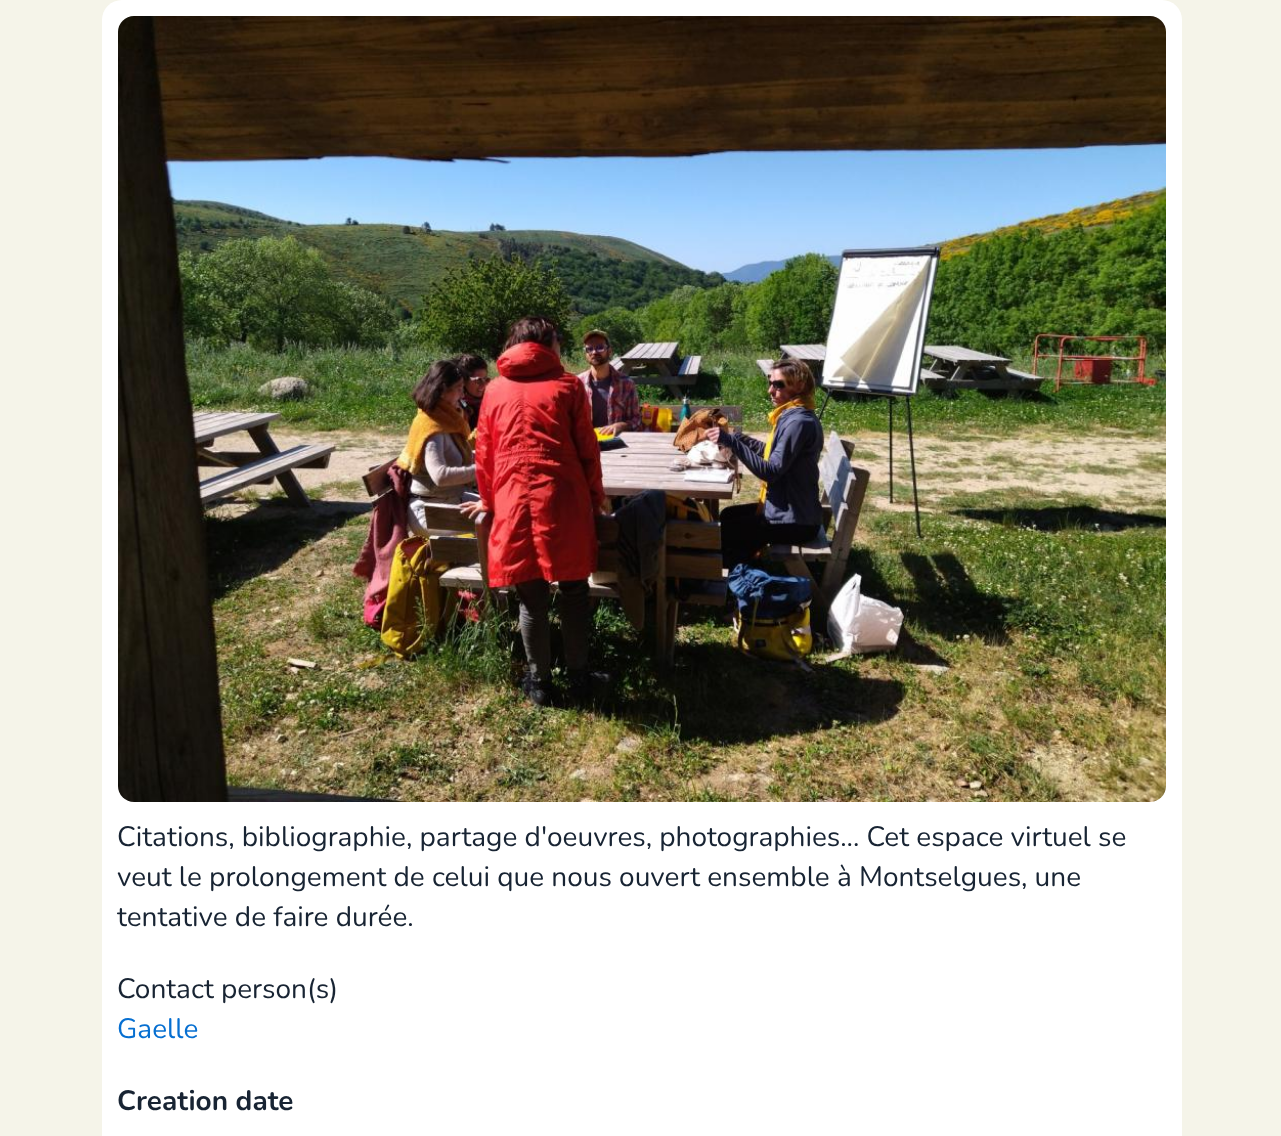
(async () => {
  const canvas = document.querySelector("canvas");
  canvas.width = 1281;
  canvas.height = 1136;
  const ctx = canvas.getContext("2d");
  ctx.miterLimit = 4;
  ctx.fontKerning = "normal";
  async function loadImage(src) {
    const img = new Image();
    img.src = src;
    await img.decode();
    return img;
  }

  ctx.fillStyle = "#f5f4e9";
  ctx.fillRect(0, 0, 1281, 1136);
  ctx.fillStyle = "#ffffff";
  ctx.beginPath();
  ctx.roundRect(102, 0, 1080, 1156, 20);
  ctx.fill();
  ctx.drawImage(await loadImage("img/1.png"), 118, 16, 1048, 786);
  ctx.font = "28px Nunito";
  ctx.fillStyle = "#182433";
  for (const [text, x, y] of [
    ["Citations, bibliographie, partage d'oeuvres, photographies... Cet espace virtuel se", 117, 846],
    ["veut le prolongement de celui que nous ouvert ensemble à Montselgues, une", 117, 886],
    ["tentative de faire durée.", 117, 926],
    ["Contact person(s)", 117, 998],
  ]) {
    ctx.fillText(text, x, y);
  }
  ctx.fillStyle = "#066fd1";
  ctx.fillText("Gaelle", 117, 1038);
  ctx.font = "bold 28px Nunito";
  ctx.fillStyle = "#182433";
  ctx.fillText("Creation date", 117, 1110);
})();
